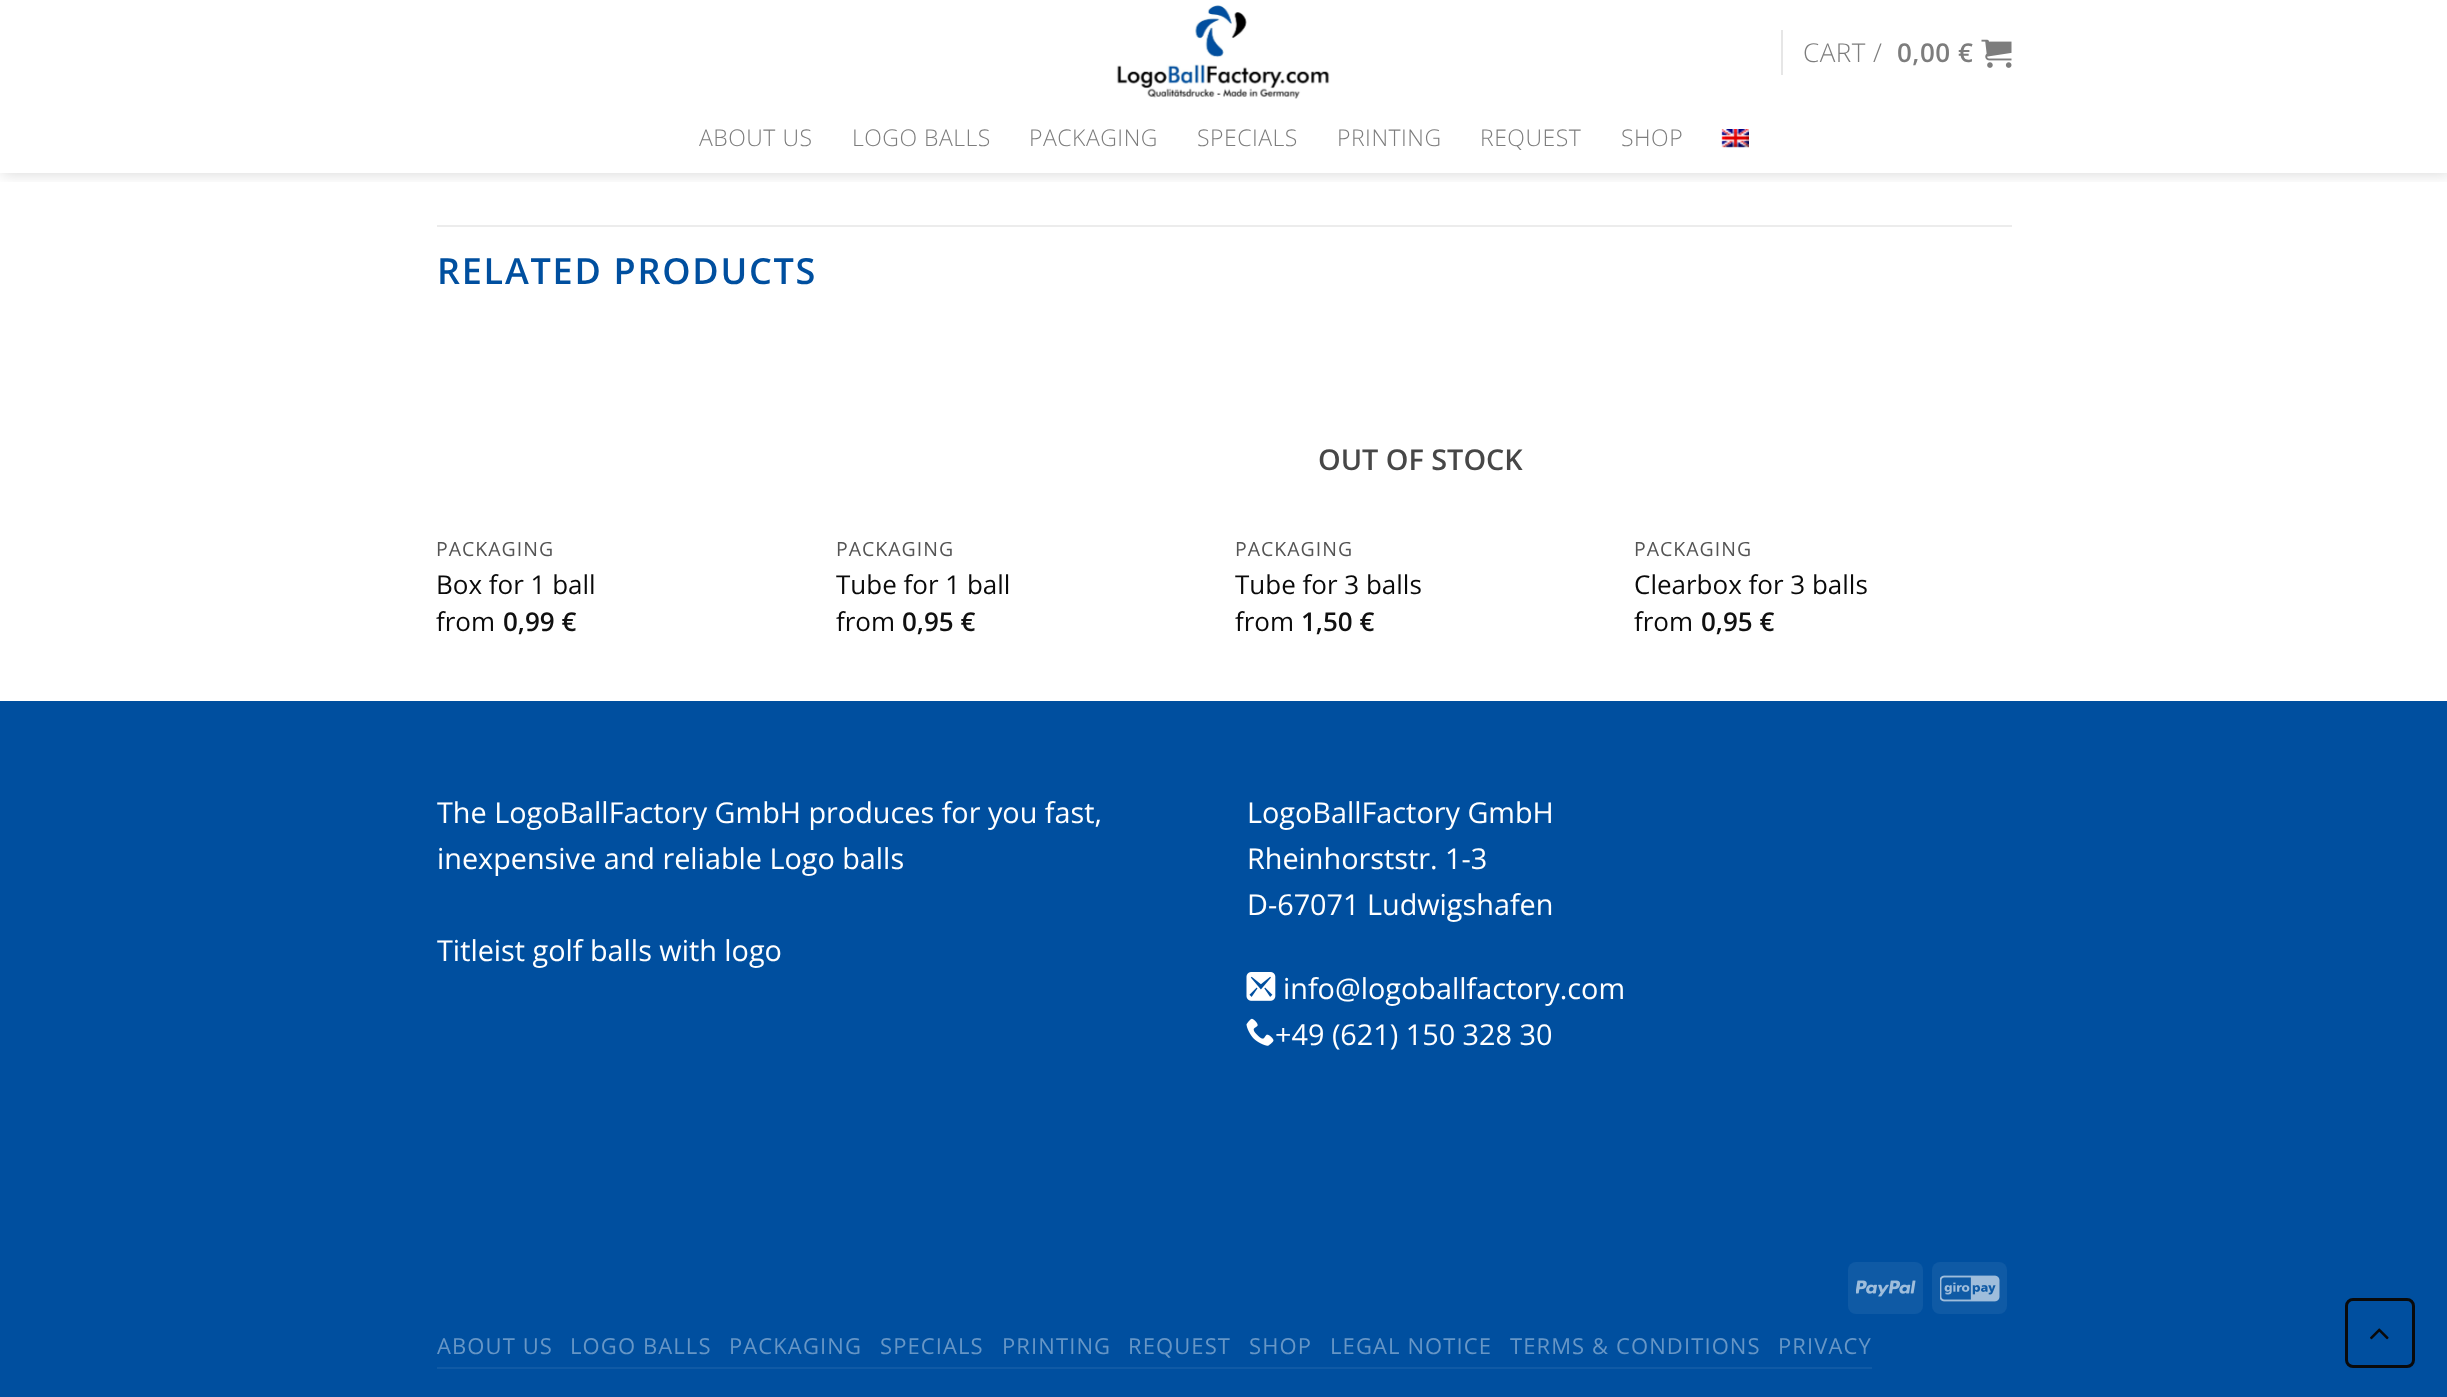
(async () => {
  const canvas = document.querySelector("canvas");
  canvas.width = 2447;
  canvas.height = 1397;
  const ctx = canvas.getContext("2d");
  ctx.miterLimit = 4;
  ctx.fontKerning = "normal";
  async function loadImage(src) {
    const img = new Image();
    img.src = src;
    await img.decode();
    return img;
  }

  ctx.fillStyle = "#ffffff";
  ctx.fillRect(0, 0, 2447, 1397);
  ctx.save();
  ctx.beginPath();
  ctx.rect(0, 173, 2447, 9);
  ctx.clip();
  ctx.fillStyle = "rgba(0, 0, 0, 0.15)";
  ctx.filter = "blur(7.5px)";
  ctx.beginPath();
  ctx.rect(2, 2, 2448, 172);
  ctx.fill();
  ctx.filter = "none";
  ctx.restore();
  ctx.drawImage(await loadImage("img/1.png"), 1112, 0, 224, 99);
  ctx.fillStyle = "#e6e6e6";
  ctx.fillRect(1781, 30, 2, 45);
  ctx.drawImage(await loadImage("img/2.png"), 1981, 39, 31, 29);
  ctx.fillStyle = "#ffffff";
  ctx.fillRect(0, 172, 2447, 1);
  ctx.drawImage(await loadImage("img/3.png"), 1721, 129, 28, 19);
  ctx.fillStyle = "#ececec";
  ctx.fillRect(437, 225, 1575, 2);
  ctx.fillStyle = "#004f9f";
  ctx.fillRect(0, 701, 2447, 696);
  ctx.drawImage(await loadImage("img/4.png"), 1246, 972, 30, 29);
  ctx.drawImage(await loadImage("img/5.png"), 1246, 1018, 28, 28);
  ctx.fillStyle = "#0f5aa5";
  ctx.beginPath();
  ctx.roundRect(1848, 1262, 75, 52, 8);
  ctx.fill();
  ctx.drawImage(await loadImage("img/6.png"), 1856, 1280, 60, 17);
  ctx.beginPath();
  ctx.roundRect(1932, 1262, 75, 52, 8);
  ctx.fill();
  ctx.drawImage(await loadImage("img/7.png"), 1940, 1275, 60, 27);
  ctx.fillStyle = "#105aa5";
  ctx.fillRect(437, 1367, 1435, 2);
  ctx.beginPath();
  ctx.roundRect(2346.5, 1299.5, 67, 67, 6.5);
  ctx.strokeStyle = "#0a0a0a";
  ctx.lineWidth = 3;
  ctx.stroke();
  ctx.drawImage(await loadImage("img/8.png"), 2370, 1328, 19, 12);
  ctx.letterSpacing = "0.5px";
  ctx.font = "300 26px Open Sans";
  ctx.fillStyle = "#7d7d7d";
  ctx.fillText("CART /", 1803, 62);
  ctx.font = "600 26px Open Sans";
  ctx.fillText("0,00 €", 1897, 62);
  ctx.font = "300 23px Open Sans";
  for (const [text, x, y] of [
    ["ABOUT US", 699, 146],
    ["LOGO BALLS", 852, 146],
    ["PACKAGING", 1029, 146],
    ["SPECIALS", 1197, 146],
    ["PRINTING", 1337, 146],
    ["REQUEST", 1480, 146],
    ["SHOP", 1621, 146],
  ]) {
    ctx.fillText(text, x, y);
  }
  ctx.letterSpacing = "1.75px";
  ctx.font = "600 36px Open Sans";
  ctx.fillStyle = "#004f9f";
  ctx.fillText("RELATED PRODUCTS", 437, 284);
  ctx.letterSpacing = "1px";
  ctx.font = "19.5px Open Sans";
  ctx.fillStyle = "#545454";
  ctx.fillText("PACKAGING", 436, 556);
  ctx.letterSpacing = "0px";
  ctx.font = "26px Open Sans";
  ctx.fillStyle = "#0a0a0a";
  ctx.fillText("Box for 1 ball", 436, 594);
  ctx.fillText("from", 436, 631);
  ctx.font = "600 26px Open Sans";
  ctx.fillStyle = "#111111";
  ctx.fillText("0,99 €", 503, 631);
  ctx.letterSpacing = "1px";
  ctx.font = "19.5px Open Sans";
  ctx.fillStyle = "#545454";
  ctx.fillText("PACKAGING", 836, 556);
  ctx.letterSpacing = "0px";
  ctx.font = "26px Open Sans";
  ctx.fillStyle = "#0a0a0a";
  ctx.fillText("Tube for 1 ball", 836, 594);
  ctx.fillText("from", 836, 631);
  ctx.font = "600 26px Open Sans";
  ctx.fillStyle = "#111111";
  ctx.fillText("0,95 €", 902, 631);
  ctx.font = "600 28.8px Open Sans";
  ctx.fillStyle = "#474747";
  ctx.fillText("OUT OF STOCK", 1318, 470);
  ctx.letterSpacing = "1px";
  ctx.font = "19.5px Open Sans";
  ctx.fillStyle = "#545454";
  ctx.fillText("PACKAGING", 1235, 556);
  ctx.letterSpacing = "0px";
  ctx.font = "26px Open Sans";
  ctx.fillStyle = "#0a0a0a";
  ctx.fillText("Tube for 3 balls", 1235, 594);
  ctx.fillText("from", 1235, 631);
  ctx.font = "600 26px Open Sans";
  ctx.fillStyle = "#111111";
  ctx.fillText("1,50 €", 1301, 631);
  ctx.letterSpacing = "1px";
  ctx.font = "19.5px Open Sans";
  ctx.fillStyle = "#545454";
  ctx.fillText("PACKAGING", 1634, 556);
  ctx.letterSpacing = "0px";
  ctx.font = "26px Open Sans";
  ctx.fillStyle = "#0a0a0a";
  ctx.fillText("Clearbox for 3 balls", 1634, 594);
  ctx.fillText("from", 1634, 631);
  ctx.font = "600 26px Open Sans";
  ctx.fillStyle = "#111111";
  ctx.fillText("0,95 €", 1701, 631);
  ctx.font = "28.8px Open Sans";
  ctx.fillStyle = "#ffffff";
  for (const [text, x, y] of [
    ["The LogoBallFactory GmbH produces for you fast,", 437, 823],
    ["inexpensive and reliable Logo balls", 437, 869],
    ["Titleist golf balls with logo", 437, 961],
    ["LogoBallFactory GmbH", 1247, 823],
    ["Rheinhorststr. 1-3", 1247, 869],
    ["D-67071 Ludwigshafen", 1247, 915],
    ["info@logoballfactory.com", 1283, 999],
    ["+49 (621) 150 328 30", 1275, 1045],
  ]) {
    ctx.fillText(text, x, y);
  }
  ctx.letterSpacing = "1.1px";
  ctx.font = "22px Open Sans";
  ctx.fillStyle = "#6696c6";
  for (const [text, x, y] of [
    ["ABOUT US", 437, 1354],
    ["LOGO BALLS", 570, 1354],
    ["PACKAGING", 729, 1354],
    ["SPECIALS", 880, 1354],
    ["PRINTING", 1002, 1354],
    ["REQUEST", 1128, 1354],
    ["SHOP", 1249, 1354],
    ["LEGAL NOTICE", 1330, 1354],
    ["TERMS & CONDITIONS", 1510, 1354],
    ["PRIVACY", 1778, 1354],
  ]) {
    ctx.fillText(text, x, y);
  }
})();
